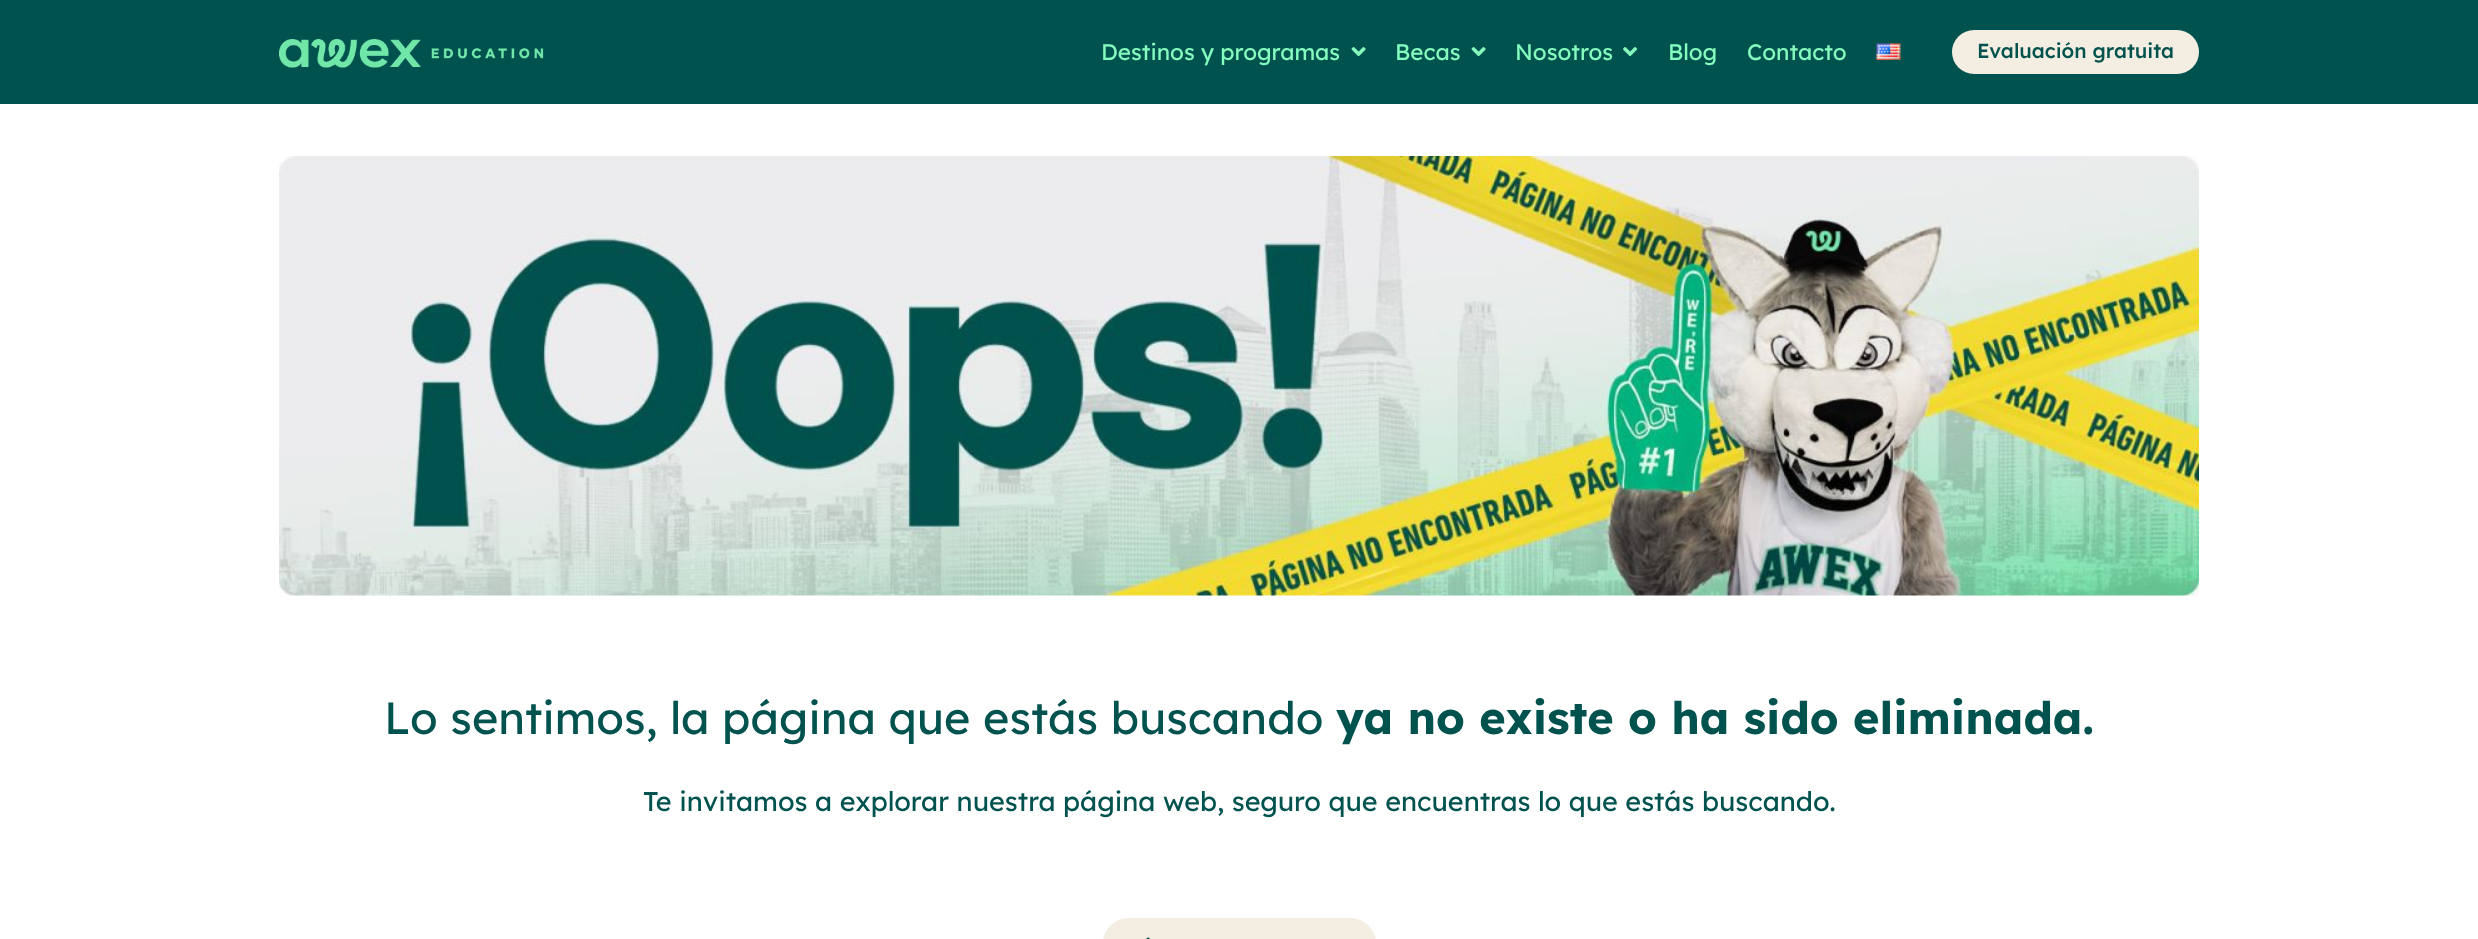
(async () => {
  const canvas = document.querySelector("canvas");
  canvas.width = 2478;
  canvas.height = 939;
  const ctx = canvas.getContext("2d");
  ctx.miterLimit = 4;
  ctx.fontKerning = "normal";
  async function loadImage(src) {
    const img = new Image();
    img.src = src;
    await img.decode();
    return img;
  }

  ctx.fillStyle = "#ffffff";
  ctx.fillRect(0, 0, 2478, 939);
  ctx.fillStyle = "#00524e";
  ctx.fillRect(0, 0, 2478, 104);
  ctx.drawImage(await loadImage("img/1.png"), 279, 39, 265, 29);
  ctx.drawImage(await loadImage("img/2.png"), 1351, 47, 15, 10);
  ctx.drawImage(await loadImage("img/2.png"), 1471, 47, 15, 10);
  ctx.drawImage(await loadImage("img/3.png"), 1623, 47, 15, 10);
  ctx.drawImage(await loadImage("img/4.png"), 1876, 43, 25, 17);
  ctx.fillStyle = "#f4ede1";
  ctx.beginPath();
  ctx.roundRect(1952, 30, 247, 44, 22);
  ctx.fill();
  ctx.drawImage(await loadImage("img/5.png"), 279, 156, 1920, 440);
  ctx.beginPath();
  ctx.roundRect(1103, 918, 273, 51, 29.5);
  ctx.fill();
  ctx.drawImage(await loadImage("img/6.png"), 1146, 937, 4, 2);
  ctx.font = "22.5px Lexend";
  ctx.fillStyle = "#85fdbf";
  for (const [text, x, y] of [
    ["Destinos y programas", 1101, 60],
    ["Becas", 1395, 60],
    ["Nosotros", 1515, 60],
    ["Blog", 1668, 60],
    ["Contacto", 1747, 60],
  ]) {
    ctx.fillText(text, x, y);
  }
  ctx.font = "500 20.25px Lexend";
  ctx.fillStyle = "#00524e";
  ctx.fillText("Evaluación gratuita", 1977, 58);
  ctx.font = "45px Lexend";
  ctx.fillText("Lo sentimos, la página que estás buscando", 384, 734);
  ctx.font = "bold 45px Lexend";
  ctx.fillText("ya no existe o ha sido eliminada.", 1336, 734);
  ctx.font = "27px Lexend";
  ctx.fillText("Te invitamos a explorar nuestra página web, seguro que encuentras lo que estás buscando.", 643, 811);
})();
